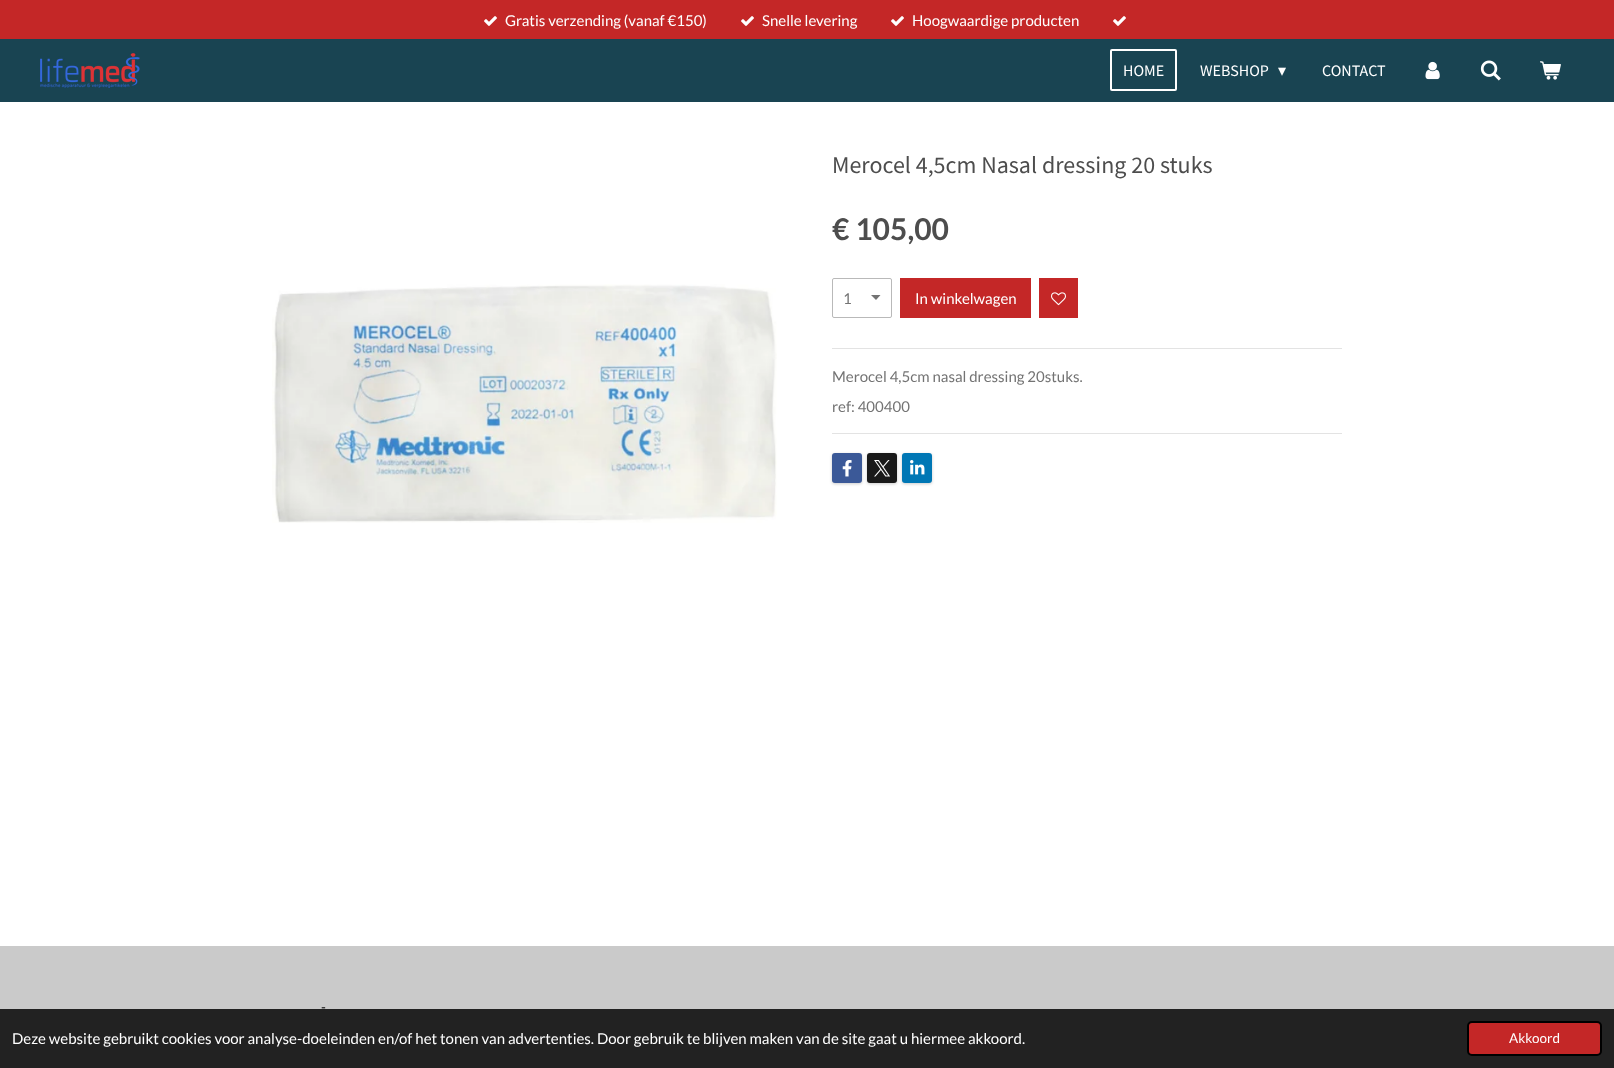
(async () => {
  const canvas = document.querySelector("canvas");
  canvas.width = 1614;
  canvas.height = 1068;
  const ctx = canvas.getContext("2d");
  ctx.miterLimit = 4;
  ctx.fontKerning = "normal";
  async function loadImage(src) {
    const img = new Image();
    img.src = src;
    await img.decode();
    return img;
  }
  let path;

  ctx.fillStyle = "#ffffff";
  ctx.fillRect(0, 0, 1614, 1068);
  ctx.fillStyle = "#194452";
  ctx.fillRect(0, 39, 1614, 63);
  ctx.fillStyle = "#c42727";
  ctx.fillRect(0, 0, 1614, 39);
  ctx.drawImage(await loadImage("img/1.png"), 484, 16, 13, 10);
  ctx.drawImage(await loadImage("img/1.png"), 741, 16, 13, 10);
  ctx.drawImage(await loadImage("img/1.png"), 891, 16, 13, 10);
  ctx.drawImage(await loadImage("img/1.png"), 1113, 16, 13, 10);
  ctx.drawImage(await loadImage("img/2.png"), 40, 53, 100, 35);
  ctx.beginPath();
  ctx.roundRect(1111, 50, 65, 40, 1);
  ctx.strokeStyle = "#ffffff";
  ctx.lineWidth = 2;
  ctx.stroke();
  ctx.drawImage(await loadImage("img/3.png"), 1425, 61, 15, 19);
  ctx.drawImage(await loadImage("img/4.png"), 1480, 60, 21, 21);
  ctx.drawImage(await loadImage("img/5.png"), 1540, 61, 21, 19);
  ctx.drawImage(await loadImage("img/6.png"), 272, 284, 505, 239);
  ctx.fillStyle = "#737373";
  path = new Path2D("M876 300L871 295H880.5Z");
  ctx.fill(path);
  ctx.beginPath();
  ctx.roundRect(832.5, 278.5, 59, 39, 1.5);
  ctx.strokeStyle = "#b9b9b9";
  ctx.lineWidth = 1;
  ctx.stroke();
  ctx.fillStyle = "#c42727";
  ctx.fillRect(900, 278, 131, 40);
  ctx.fillRect(1039, 278, 39, 40);
  ctx.drawImage(await loadImage("img/7.png"), 1051, 292, 15, 14);
  ctx.fillStyle = "#e3e3e3";
  ctx.fillRect(832, 348, 510, 1);
  ctx.fillRect(832, 433, 510, 1);
  ctx.fillStyle = "rgba(0, 0, 0, 0.2)";
  ctx.filter = "blur(1.5px)";
  ctx.beginPath();
  ctx.roundRect(832, 454, 30, 30, 3);
  ctx.fill();
  ctx.filter = "none";
  ctx.fillStyle = "#3b5998";
  ctx.beginPath();
  ctx.roundRect(832, 453, 30, 30, 3);
  ctx.fill();
  ctx.drawImage(await loadImage("img/8.png"), 842, 460, 10, 17);
  ctx.fillStyle = "rgba(0, 0, 0, 0.2)";
  ctx.filter = "blur(1.5px)";
  ctx.beginPath();
  ctx.roundRect(867, 454, 30, 30, 3);
  ctx.fill();
  ctx.filter = "none";
  ctx.fillStyle = "#1a1a1a";
  ctx.beginPath();
  ctx.roundRect(867, 453, 30, 30, 3);
  ctx.fill();
  ctx.drawImage(await loadImage("img/9.png"), 874, 460, 16, 17);
  ctx.fillStyle = "rgba(0, 0, 0, 0.2)";
  ctx.filter = "blur(1.5px)";
  ctx.beginPath();
  ctx.roundRect(902, 454, 30, 30, 3);
  ctx.fill();
  ctx.filter = "none";
  ctx.fillStyle = "#0077b5";
  ctx.beginPath();
  ctx.roundRect(902, 453, 30, 30, 3);
  ctx.fill();
  ctx.drawImage(await loadImage("img/10.png"), 910, 460, 15, 15);
  ctx.fillStyle = "#cacaca";
  ctx.fillRect(0, 946, 1614, 63);
  ctx.fillStyle = "#222222";
  ctx.fillRect(0, 1009, 1614, 59);
  ctx.fillStyle = "#c42727";
  ctx.beginPath();
  ctx.roundRect(1468, 1022, 133, 33, 4);
  ctx.fill();
  ctx.strokeStyle = "#000000";
  ctx.lineWidth = 2;
  ctx.stroke();
  ctx.font = "15px Lato";
  ctx.fillStyle = "#ffffff";
  for (const [text, x, y] of [
    ["Gratis verzending (vanaf €150)", 505, 26],
    ["Snelle levering", 762, 26],
    ["Hoogwaardige producten", 912, 26],
  ]) {
    ctx.fillText(text, x, y);
  }
  ctx.font = "16px Source Sans Pro";
  ctx.fillText("HOME", 1123, 76);
  ctx.fillText("WEBSHOP", 1200, 76);
  ctx.font = "16px DejaVu Sans";
  ctx.fillText("▾", 1278, 76);
  ctx.font = "16px Source Sans Pro";
  ctx.fillText("CONTACT", 1322, 76);
  ctx.font = "24px Source Sans Pro";
  ctx.fillStyle = "#4d4d4d";
  ctx.fillText("Merocel 4,5cm Nasal dressing 20 stuks", 832, 173);
  ctx.font = "bold 30px Lato";
  ctx.fillText("€ 105,00", 832, 240);
  ctx.font = "15px Lato";
  ctx.fillStyle = "#737373";
  ctx.fillText("1", 843, 304);
  ctx.fillStyle = "#ffffff";
  ctx.fillText("In winkelwagen", 915, 304);
  ctx.fillStyle = "#737373";
  ctx.fillText("Merocel 4,5cm nasal dressing 20stuks.", 832, 382);
  ctx.fillText("ref: 400400", 832, 412);
  ctx.font = "14px Lato";
  ctx.fillStyle = "#000000";
  ctx.fillText("-", 321, 1012);
  ctx.font = "15px Lato";
  ctx.fillStyle = "#ffffff";
  ctx.fillText("Deze website gebruikt cookies voor analyse-doeleinden en/of het tonen van advertenties. Door gebruik te blijven maken van de site gaat u hiermee akkoord.", 12, 1044);
  ctx.font = "13.5px Lato";
  ctx.fillText("Akkoord", 1509, 1043);
})();
